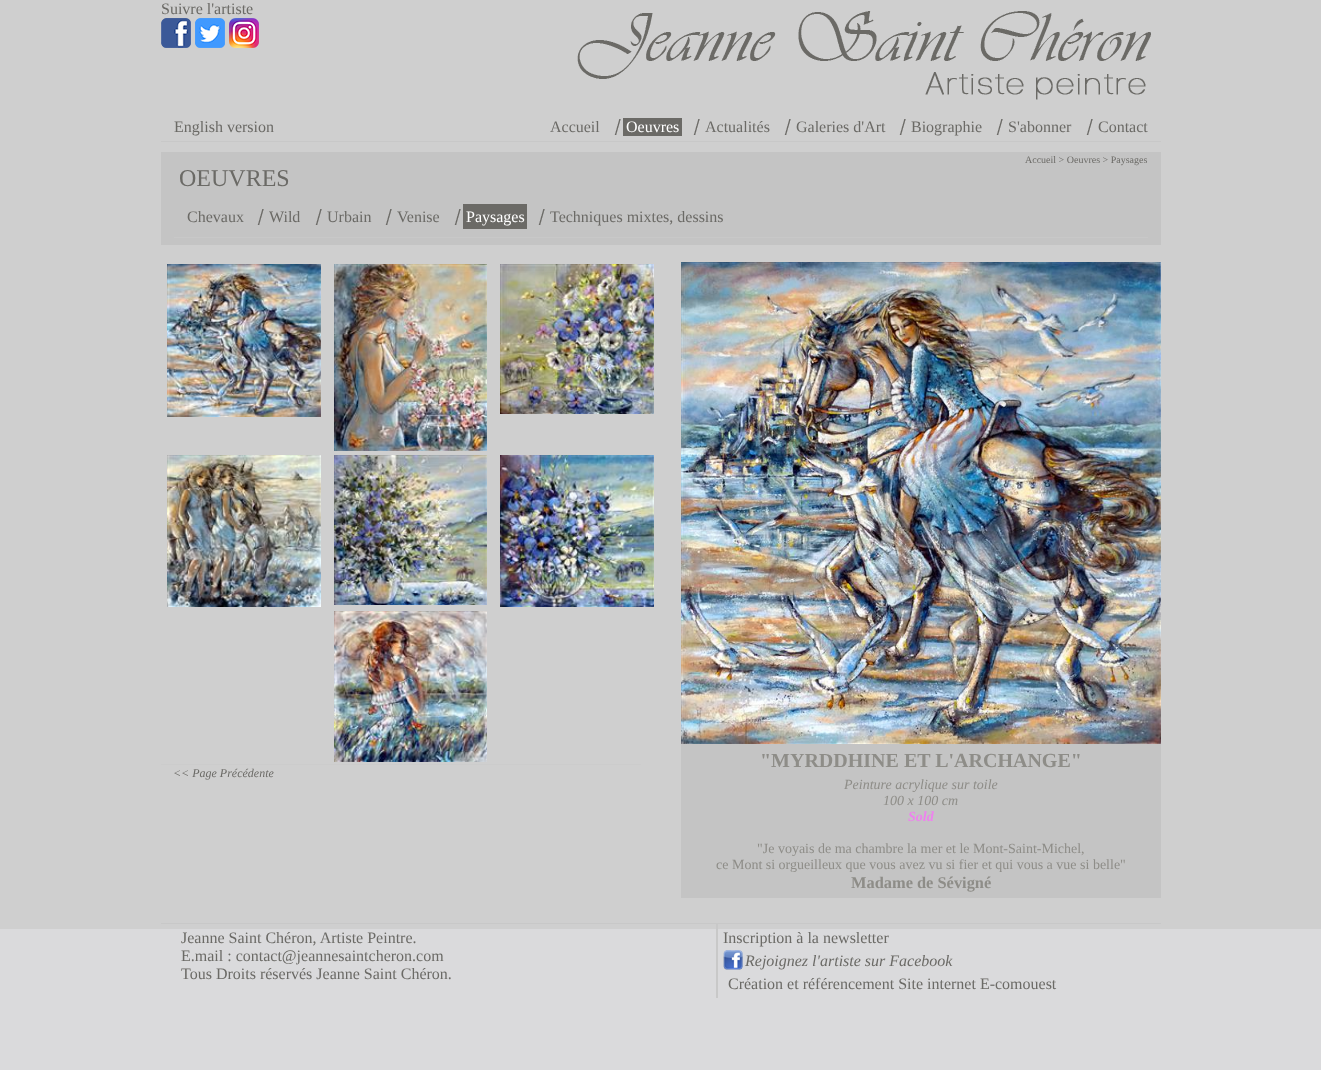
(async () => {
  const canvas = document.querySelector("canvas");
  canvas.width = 1321;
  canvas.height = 1070;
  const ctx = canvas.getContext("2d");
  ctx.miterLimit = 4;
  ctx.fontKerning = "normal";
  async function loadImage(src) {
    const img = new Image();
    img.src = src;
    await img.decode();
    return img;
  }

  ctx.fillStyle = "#dadadc";
  ctx.fillRect(0, 0, 1321, 1070);
  ctx.fillStyle = "#cfcfcf";
  ctx.fillRect(0, 0, 1321, 929);
  ctx.drawImage(await loadImage("img/1.png"), 161, 18, 30, 30);
  ctx.drawImage(await loadImage("img/2.png"), 195, 18, 30, 30);
  ctx.drawImage(await loadImage("img/3.png"), 229, 18, 30, 30);
  ctx.drawImage(await loadImage("img/4.png"), 577, 11, 574, 89);
  ctx.fillStyle = "#c8c8c8";
  ctx.fillRect(161, 141, 1000, 1);
  ctx.drawImage(await loadImage("img/5.png"), 614, 119, 7, 16);
  ctx.fillStyle = "#6b6a66";
  ctx.fillRect(623, 118, 59, 18);
  ctx.drawImage(await loadImage("img/5.png"), 693, 119, 7, 16);
  ctx.drawImage(await loadImage("img/5.png"), 784, 119, 7, 16);
  ctx.drawImage(await loadImage("img/5.png"), 899, 119, 7, 16);
  ctx.drawImage(await loadImage("img/5.png"), 996, 119, 7, 16);
  ctx.drawImage(await loadImage("img/5.png"), 1086, 119, 7, 16);
  ctx.fillStyle = "#c4c4c4";
  ctx.fillRect(161, 152, 1000, 93);
  ctx.fillStyle = "#c8c8c8";
  ctx.fillRect(174, 237, 974, 1);
  ctx.drawImage(await loadImage("img/6.png"), 257, 209, 7, 16);
  ctx.drawImage(await loadImage("img/6.png"), 315, 209, 7, 16);
  ctx.drawImage(await loadImage("img/6.png"), 385, 209, 7, 16);
  ctx.drawImage(await loadImage("img/6.png"), 454, 209, 7, 16);
  ctx.fillStyle = "#6b6a66";
  ctx.fillRect(463, 204, 64, 25);
  ctx.drawImage(await loadImage("img/6.png"), 538, 209, 7, 16);
  ctx.drawImage(await loadImage("img/7.png"), 167, 264, 154, 153);
  ctx.drawImage(await loadImage("img/8.png"), 334, 264, 153, 187);
  ctx.drawImage(await loadImage("img/9.png"), 500, 264, 154, 150);
  ctx.drawImage(await loadImage("img/10.png"), 167, 455, 154, 152);
  ctx.drawImage(await loadImage("img/11.png"), 334, 455, 153, 150);
  ctx.drawImage(await loadImage("img/12.png"), 500, 455, 154, 152);
  ctx.drawImage(await loadImage("img/13.png"), 334, 611, 153, 151);
  ctx.fillStyle = "#cccccc";
  ctx.fillRect(161, 764, 480, 1);
  ctx.drawImage(await loadImage("img/14.png"), 681, 262, 480, 482);
  for (const [x, y, w, h, color] of [
    [681, 744, 480, 154, "#c4c4c4"],
    [161, 923, 1000, 1, "#c8c8c8"],
    [716, 924, 2, 74, "#c8c8c8"],
  ]) {
    ctx.fillStyle = color;
    ctx.fillRect(x, y, w, h);
  }
  ctx.drawImage(await loadImage("img/15.png"), 723, 950, 20, 20);
  ctx.font = "16px Liberation Serif";
  ctx.fillStyle = "#6b6a66";
  for (const [text, x, y] of [
    ["Suivre l'artiste", 161, 14],
    ["English version", 174, 132],
    ["Accueil", 550, 132],
  ]) {
    ctx.fillText(text, x, y);
  }
  ctx.fillStyle = "#ffffff";
  ctx.fillText("Oeuvres", 626, 132);
  ctx.fillStyle = "#6b6a66";
  for (const [text, x, y] of [
    ["Actualités", 705, 132],
    ["Galeries d'Art", 796, 132],
    ["Biographie", 911, 132],
    ["S'abonner", 1008, 132],
    ["Contact", 1098, 132],
  ]) {
    ctx.fillText(text, x, y);
  }
  ctx.font = "10px Liberation Serif";
  ctx.fillText("Accueil > Oeuvres > Paysages", 1025, 163);
  ctx.font = "24px Liberation Serif";
  ctx.fillText("OEUVRES", 179, 186);
  ctx.font = "16px Liberation Serif";
  for (const [text, x, y] of [
    ["Chevaux", 187, 222],
    ["Wild", 269, 222],
    ["Urbain", 327, 222],
    ["Venise", 397, 222],
  ]) {
    ctx.fillText(text, x, y);
  }
  ctx.fillStyle = "#ffffff";
  ctx.fillText("Paysages", 466, 222);
  ctx.fillStyle = "#6b6a66";
  ctx.fillText("Techniques mixtes, dessins", 550, 222);
  ctx.font = "italic 12px Liberation Serif";
  ctx.fillText("<< Page Précédente", 173, 777);
  ctx.font = "bold 20px Liberation Serif";
  ctx.fillStyle = "#8e8d88";
  ctx.fillText("\"MYRDDHINE ET L'ARCHANGE\"", 760, 767);
  ctx.font = "italic 14px Liberation Serif";
  ctx.fillText("Peinture acrylique sur toile", 844, 789);
  ctx.fillText("100 x 100 cm", 883, 805);
  ctx.font = "italic bold 14px Liberation Serif";
  ctx.fillStyle = "#ee82ee";
  ctx.fillText("Sold", 908, 821);
  ctx.font = "14px Liberation Serif";
  ctx.fillStyle = "#8e8d88";
  ctx.fillText("\"Je voyais de ma chambre la mer et le Mont-Saint-Michel,", 757, 853);
  ctx.fillText("ce Mont si orgueilleux que vous avez vu si fier et qui vous a vue si belle\"", 716, 869);
  ctx.font = "bold 16.4px Liberation Serif";
  ctx.fillText("Madame de Sévigné", 851, 888);
  ctx.font = "16px Liberation Serif";
  ctx.fillStyle = "#6b6a66";
  for (const [text, x, y] of [
    ["Jeanne Saint Chéron, Artiste Peintre.", 181, 943],
    ["E.mail : contact@jeannesaintcheron.com", 181, 961],
    ["Tous Droits réservés Jeanne Saint Chéron.", 181, 979],
    ["Inscription à la newsletter", 723, 943],
  ]) {
    ctx.fillText(text, x, y);
  }
  ctx.font = "italic 16px Liberation Serif";
  ctx.fillText("Rejoignez l'artiste sur Facebook", 745, 966);
  ctx.font = "16px Liberation Serif";
  ctx.fillText("Création et référencement Site internet E-comouest", 728, 989);
})();
